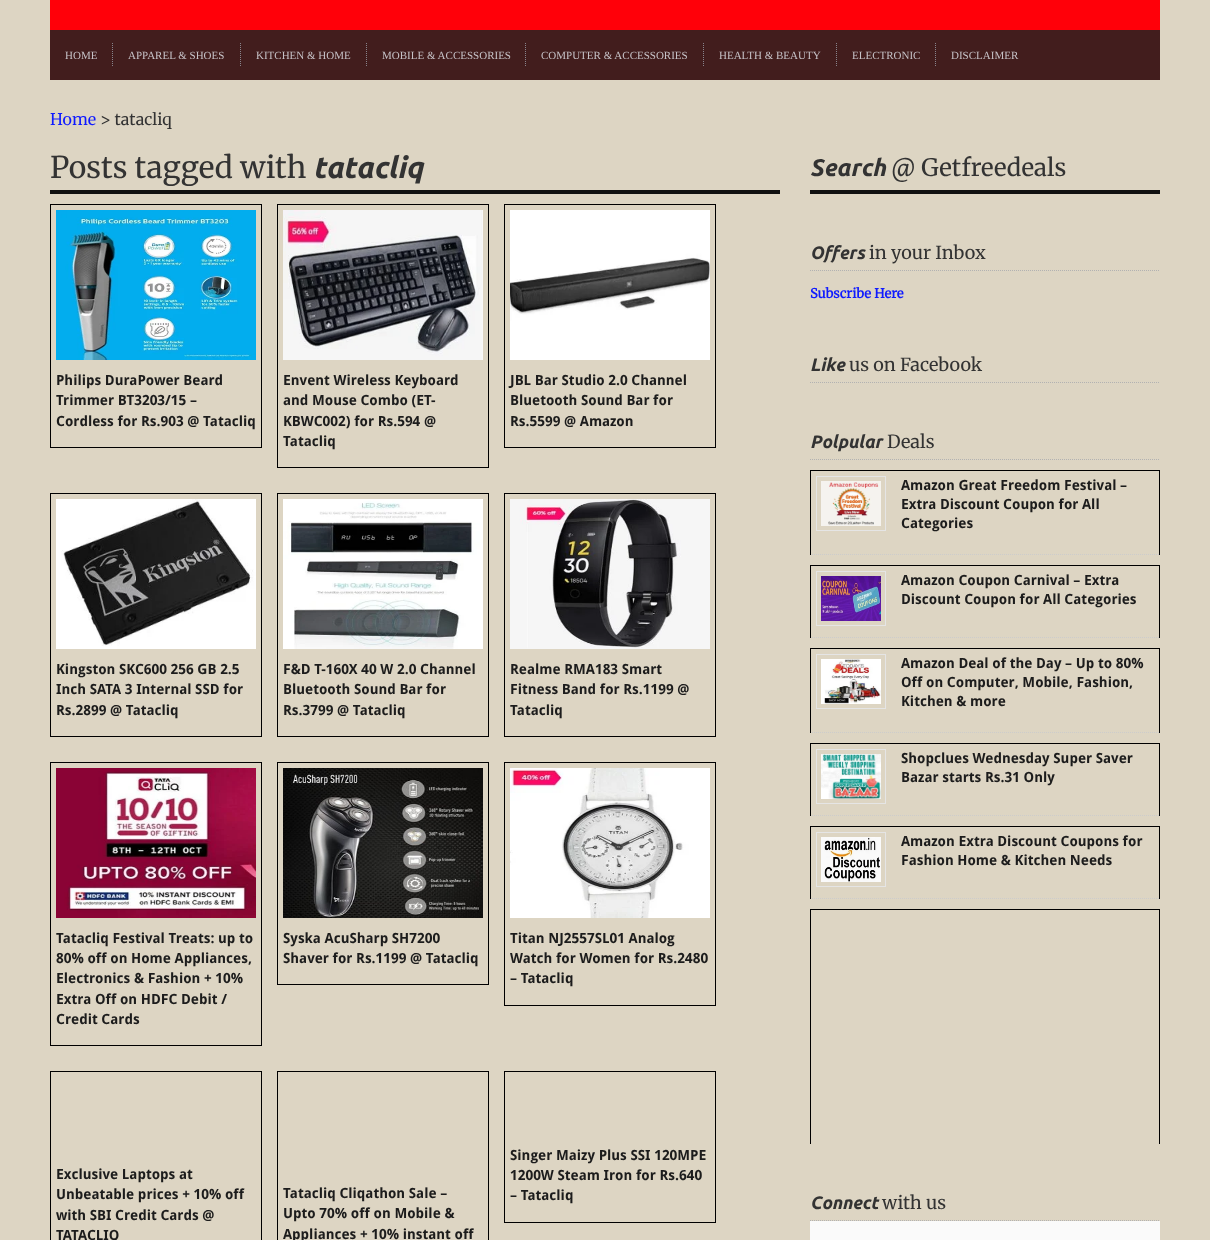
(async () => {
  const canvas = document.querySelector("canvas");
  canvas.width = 1210;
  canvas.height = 1240;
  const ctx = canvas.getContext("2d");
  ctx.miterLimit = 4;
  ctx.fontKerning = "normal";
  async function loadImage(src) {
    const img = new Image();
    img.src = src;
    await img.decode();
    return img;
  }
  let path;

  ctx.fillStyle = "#ddd5c3";
  ctx.fillRect(0, 0, 1210, 1240);
  ctx.fillStyle = "#ff0009";
  ctx.fillRect(50, 0, 1110, 30);
  ctx.fillStyle = "#421d1d";
  ctx.fillRect(50, 30, 1110, 50);
  path = new Path2D("M112.5 43V67");
  ctx.strokeStyle = "#88848c";
  ctx.setLineDash([1, 1]);
  ctx.stroke(path);
  path = new Path2D("M240.5 43V67");
  ctx.stroke(path);
  path = new Path2D("M366.5 43V67");
  ctx.stroke(path);
  path = new Path2D("M525.5 43V67");
  ctx.stroke(path);
  path = new Path2D("M703.5 43V67");
  ctx.stroke(path);
  path = new Path2D("M836.5 43V67");
  ctx.stroke(path);
  path = new Path2D("M935.5 43V67");
  ctx.stroke(path);
  ctx.fillStyle = "#111111";
  ctx.fillRect(50, 190, 730, 4);
  ctx.strokeStyle = "#000000";
  ctx.setLineDash([]);
  ctx.strokeRect(50.5, 204.5, 211, 243);
  ctx.drawImage(await loadImage("img/1.png"), 56, 210, 200, 150);
  ctx.strokeRect(277.5, 204.5, 211, 263);
  ctx.drawImage(await loadImage("img/2.png"), 283, 210, 200, 150);
  ctx.strokeRect(504.5, 204.5, 211, 243);
  ctx.drawImage(await loadImage("img/3.png"), 510, 210, 200, 150);
  ctx.strokeRect(50.5, 493.5, 211, 243);
  ctx.drawImage(await loadImage("img/4.png"), 56, 499, 200, 150);
  ctx.strokeRect(277.5, 493.5, 211, 243);
  ctx.drawImage(await loadImage("img/5.png"), 283, 499, 200, 150);
  ctx.strokeRect(504.5, 493.5, 211, 243);
  ctx.drawImage(await loadImage("img/6.png"), 510, 499, 200, 150);
  ctx.strokeRect(50.5, 762.5, 211, 283);
  ctx.drawImage(await loadImage("img/7.png"), 56, 768, 200, 150);
  ctx.strokeRect(277.5, 762.5, 211, 222);
  ctx.drawImage(await loadImage("img/8.png"), 283, 768, 200, 150);
  ctx.strokeRect(504.5, 762.5, 211, 243);
  ctx.drawImage(await loadImage("img/9.png"), 510, 768, 200, 150);
  ctx.strokeRect(50.5, 1071.5, 211, 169);
  ctx.strokeRect(277.5, 1071.5, 211, 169);
  ctx.strokeRect(504.5, 1071.5, 211, 151);
  ctx.fillRect(810, 190, 350, 4);
  path = new Path2D("M810 270.5H1160");
  ctx.strokeStyle = "#b2b2b2";
  ctx.setLineDash([1, 1]);
  ctx.stroke(path);
  path = new Path2D("M810 382.5H1160");
  ctx.stroke(path);
  path = new Path2D("M810 459.5H1160");
  ctx.stroke(path);
  ctx.fillStyle = "#000000";
  ctx.fillRect(810, 470, 350, 1);
  ctx.fillRect(1159, 470, 1, 85);
  path = new Path2D("M810 554.5H1160");
  ctx.strokeStyle = "#cccccc";
  ctx.stroke(path);
  ctx.fillRect(810, 470, 1, 85);
  ctx.strokeStyle = "#e5e5e5";
  ctx.setLineDash([]);
  ctx.strokeRect(816.5, 476.5, 69, 54);
  ctx.drawImage(await loadImage("img/10.png"), 821, 481, 60, 45);
  ctx.fillRect(810, 565, 350, 1);
  ctx.fillRect(1159, 565, 1, 73);
  path = new Path2D("M810 637.5H1160");
  ctx.strokeStyle = "#cccccc";
  ctx.setLineDash([1, 1]);
  ctx.stroke(path);
  ctx.fillRect(810, 565, 1, 73);
  ctx.strokeStyle = "#e5e5e5";
  ctx.setLineDash([]);
  ctx.strokeRect(816.5, 571.5, 69, 54);
  ctx.drawImage(await loadImage("img/11.png"), 821, 576, 60, 45);
  ctx.fillRect(810, 648, 350, 1);
  ctx.fillRect(1159, 648, 1, 85);
  path = new Path2D("M810 732.5H1160");
  ctx.strokeStyle = "#cccccc";
  ctx.setLineDash([1, 1]);
  ctx.stroke(path);
  ctx.fillRect(810, 648, 1, 85);
  ctx.strokeStyle = "#e5e5e5";
  ctx.setLineDash([]);
  ctx.strokeRect(816.5, 654.5, 69, 54);
  ctx.drawImage(await loadImage("img/12.png"), 821, 659, 60, 45);
  ctx.fillRect(810, 743, 350, 1);
  ctx.fillRect(1159, 743, 1, 73);
  path = new Path2D("M810 815.5H1160");
  ctx.strokeStyle = "#cccccc";
  ctx.setLineDash([1, 1]);
  ctx.stroke(path);
  ctx.fillRect(810, 743, 1, 73);
  ctx.strokeStyle = "#e5e5e5";
  ctx.setLineDash([]);
  ctx.strokeRect(816.5, 749.5, 69, 54);
  ctx.drawImage(await loadImage("img/13.png"), 821, 754, 60, 45);
  ctx.fillRect(810, 826, 350, 1);
  ctx.fillRect(1159, 826, 1, 73);
  path = new Path2D("M810 898.5H1160");
  ctx.strokeStyle = "#cccccc";
  ctx.setLineDash([1, 1]);
  ctx.stroke(path);
  ctx.fillRect(810, 826, 1, 73);
  ctx.strokeStyle = "#e5e5e5";
  ctx.setLineDash([]);
  ctx.strokeRect(816.5, 832.5, 69, 54);
  ctx.drawImage(await loadImage("img/14.png"), 821, 837, 60, 45);
  for (const [x, y, w, h, color] of [
    [810, 909, 350, 1, "#000000"],
    [1159, 909, 1, 235, "#000000"],
    [810, 909, 1, 235, "#000000"],
  ]) {
    ctx.fillStyle = color;
    ctx.fillRect(x, y, w, h);
  }
  path = new Path2D("M810 1220.5H1160");
  ctx.strokeStyle = "#b2b2b2";
  ctx.setLineDash([1, 1]);
  ctx.stroke(path);
  ctx.fillStyle = "#fafafa";
  ctx.fillRect(810, 1221, 350, 19);
  ctx.font = "11px Liberation Serif";
  ctx.fillStyle = "#c6c2c7";
  for (const [text, x, y] of [
    ["HOME", 65, 59],
    ["APPAREL & SHOES", 128, 59],
    ["KITCHEN & HOME", 256, 59],
    ["MOBILE & ACCESSORIES", 382, 59],
    ["COMPUTER & ACCESSORIES", 541, 59],
    ["HEALTH & BEAUTY", 719, 59],
    ["ELECTRONIC", 852, 59],
    ["DISCLAIMER", 951, 59],
  ]) {
    ctx.fillText(text, x, y);
  }
  ctx.font = "300 16px Merriweather";
  ctx.fillStyle = "#0f1bff";
  ctx.fillText("Home", 50, 125);
  ctx.fillStyle = "#333333";
  ctx.fillText("> tatacliq", 100, 125);
  ctx.font = "300 30px Merriweather";
  ctx.fillText("Posts tagged with", 50, 178);
  ctx.font = "italic bold 30px Ubuntu";
  ctx.fillText("tatacliq", 313, 178);
  ctx.font = "bold 14px Droid Sans";
  ctx.fillStyle = "#1c1c1c";
  for (const [text, x, y] of [
    ["Philips DuraPower Beard", 56, 385],
    ["Trimmer BT3203/15 –", 56, 405],
    ["Cordless for Rs.903 @ Tatacliq", 56, 426],
    ["Envent Wireless Keyboard", 283, 385],
    ["and Mouse Combo (ET-", 283, 405],
    ["KBWC002) for Rs.594 @", 283, 426],
    ["Tatacliq", 283, 446],
    ["JBL Bar Studio 2.0 Channel", 510, 385],
    ["Bluetooth Sound Bar for", 510, 405],
    ["Rs.5599 @ Amazon", 510, 426],
    ["Kingston SKC600 256 GB 2.5", 56, 674],
    ["Inch SATA 3 Internal SSD for", 56, 694],
    ["Rs.2899 @ Tatacliq", 56, 715],
    ["F&D T-160X 40 W 2.0 Channel", 283, 674],
    ["Bluetooth Sound Bar for", 283, 694],
    ["Rs.3799 @ Tatacliq", 283, 715],
    ["Realme RMA183 Smart", 510, 674],
    ["Fitness Band for Rs.1199 @", 510, 694],
    ["Tatacliq", 510, 715],
    ["Tatacliq Festival Treats: up to", 56, 943],
    ["80% off on Home Appliances,", 56, 963],
    ["Electronics & Fashion + 10%", 56, 983],
    ["Extra Off on HDFC Debit /", 56, 1004],
    ["Credit Cards", 56, 1024],
    ["Syska AcuSharp SH7200", 283, 943],
    ["Shaver for Rs.1199 @ Tatacliq", 283, 963],
    ["Titan NJ2557SL01 Analog", 510, 943],
    ["Watch for Women for Rs.2480", 510, 963],
    ["– Tatacliq", 510, 983],
    ["Exclusive Laptops at", 56, 1179],
    ["Unbeatable prices + 10% off", 56, 1199],
    ["with SBI Credit Cards @", 56, 1220],
    ["TATACLIQ", 56, 1240],
    ["Tatacliq Cliqathon Sale –", 283, 1198],
    ["Upto 70% off on Mobile &", 283, 1218],
    ["Appliances + 10% instant off", 283, 1239],
    ["Singer Maizy Plus SSI 120MPE", 510, 1160],
    ["1200W Steam Iron for Rs.640", 510, 1180],
    ["– Tatacliq", 510, 1200],
  ]) {
    ctx.fillText(text, x, y);
  }
  ctx.font = "italic bold 24px Ubuntu";
  ctx.fillStyle = "#333333";
  ctx.fillText("Search", 810, 176);
  ctx.font = "300 24px Merriweather";
  ctx.fillText("@ Getfreedeals", 891, 176);
  ctx.font = "italic bold 18px Ubuntu";
  ctx.fillText("Offers", 810, 259);
  ctx.font = "300 18px Merriweather";
  ctx.fillText("in your Inbox", 869, 259);
  ctx.font = "bold 13px Merriweather";
  ctx.fillStyle = "#0f1bff";
  ctx.fillText("Subscribe Here", 810, 298);
  ctx.font = "italic bold 18px Ubuntu";
  ctx.fillStyle = "#333333";
  ctx.fillText("Like", 810, 371);
  ctx.font = "300 18px Merriweather";
  ctx.fillText("us on Facebook", 849, 371);
  ctx.font = "italic bold 18px Ubuntu";
  ctx.fillText("Polpular", 810, 448);
  ctx.font = "300 18px Merriweather";
  ctx.fillText("Deals", 887, 448);
  ctx.font = "bold 14px Droid Sans";
  ctx.fillStyle = "#1c1c1c";
  for (const [text, x, y] of [
    ["Amazon Great Freedom Festival –", 901, 490],
    ["Extra Discount Coupon for All", 901, 509],
    ["Categories", 901, 528],
    ["Amazon Coupon Carnival – Extra", 901, 585],
    ["Discount Coupon for All Categories", 901, 604],
    ["Amazon Deal of the Day – Up to 80%", 901, 668],
    ["Off on Computer, Mobile, Fashion,", 901, 687],
    ["Kitchen & more", 901, 706],
    ["Shopclues Wednesday Super Saver", 901, 763],
    ["Bazar starts Rs.31 Only", 901, 782],
    ["Amazon Extra Discount Coupons for", 901, 846],
    ["Fashion Home & Kitchen Needs", 901, 865],
  ]) {
    ctx.fillText(text, x, y);
  }
  ctx.font = "italic bold 18px Ubuntu";
  ctx.fillStyle = "#333333";
  ctx.fillText("Connect", 810, 1209);
  ctx.font = "300 18px Merriweather";
  ctx.fillText("with us", 882, 1209);
})();
